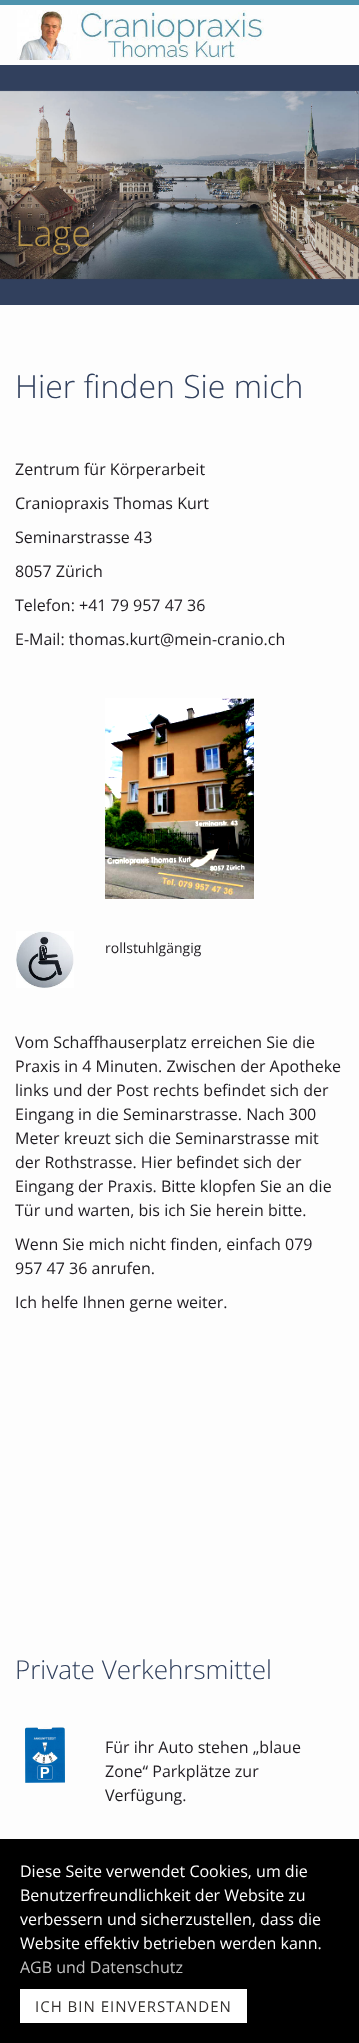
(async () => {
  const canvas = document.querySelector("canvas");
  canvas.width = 359;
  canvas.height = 2043;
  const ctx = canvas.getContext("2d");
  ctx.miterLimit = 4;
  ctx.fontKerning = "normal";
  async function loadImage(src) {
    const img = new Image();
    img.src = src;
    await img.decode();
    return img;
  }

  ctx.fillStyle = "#fdfdfd";
  ctx.fillRect(0, 0, 359, 2043);
  ctx.fillStyle = "#4d93ad";
  ctx.fillRect(0, 0, 359, 5);
  ctx.drawImage(await loadImage("img/1.png"), 17, 10, 247, 50);
  ctx.fillStyle = "#31405d";
  ctx.fillRect(0, 65, 359, 240);
  ctx.drawImage(await loadImage("img/2.png"), 0, 90, 359, 190);
  ctx.drawImage(await loadImage("img/3.png"), 105, 698, 149, 201);
  ctx.drawImage(await loadImage("img/4.png"), 16, 931, 58, 57);
  ctx.drawImage(await loadImage("img/5.png"), 25, 1727, 40, 56);
  ctx.fillStyle = "#000000";
  ctx.fillRect(0, 1839, 359, 204);
  ctx.fillStyle = "#ffffff";
  ctx.fillRect(20, 1989, 227, 34);
  ctx.font = "300 36px Open Sans";
  ctx.fillStyle = "#b79449";
  ctx.fillText("Lage", 15, 246);
  ctx.font = "300 32px Open Sans";
  ctx.fillStyle = "#31405d";
  ctx.fillText("Hier finden Sie mich", 15, 398);
  ctx.font = "16px Open Sans";
  ctx.fillStyle = "#1e1b20";
  for (const [text, x, y] of [
    ["Zentrum für Körperarbeit", 15, 475],
    ["Craniopraxis Thomas Kurt", 15, 509],
    ["Seminarstrasse 43", 15, 543],
    ["8057 Zürich", 15, 577],
    ["Telefon: +41 79 957 47 36", 15, 611],
    ["E-Mail: thomas.kurt@mein-cranio.ch", 15, 645],
  ]) {
    ctx.fillText(text, x, y);
  }
  ctx.font = "14px Open Sans";
  ctx.fillText("rollstuhlgängig", 105, 953);
  ctx.font = "16px Open Sans";
  for (const [text, x, y] of [
    ["Vom Schaffhauserplatz erreichen Sie die", 15, 1048],
    ["Praxis in 4 Minuten. Zwischen der Apotheke", 15, 1072],
    ["links und der Post rechts befindet sich der", 15, 1096],
    ["Eingang in die Seminarstrasse. Nach 300", 15, 1120],
    ["Meter kreuzt sich die Seminarstrasse mit", 15, 1144],
    ["der Rothstrasse. Hier befindet sich der", 15, 1168],
    ["Eingang der Praxis. Bitte klopfen Sie an die", 15, 1192],
    ["Tür und warten, bis ich Sie herein bitte.", 15, 1216],
    ["Wenn Sie mich nicht finden, einfach 079", 15, 1250],
    ["957 47 36 anrufen.", 15, 1274],
    ["Ich helfe Ihnen gerne weiter.", 15, 1308],
  ]) {
    ctx.fillText(text, x, y);
  }
  ctx.font = "300 26px Open Sans";
  ctx.fillStyle = "#31405d";
  ctx.fillText("Private Verkehrsmittel", 15, 1679);
  ctx.font = "16px Open Sans";
  ctx.fillStyle = "#1e1b20";
  for (const [text, x, y] of [
    ["Für ihr Auto stehen „blaue", 105, 1753],
    ["Zone“ Parkplätze zur", 105, 1777],
    ["Verfügung.", 105, 1801],
  ]) {
    ctx.fillText(text, x, y);
  }
  ctx.fillStyle = "#ffffff";
  for (const [text, x, y] of [
    ["Diese Seite verwendet Cookies, um die", 20, 1877],
    ["Benutzerfreundlichkeit der Website zu", 20, 1901],
    ["verbessern und sicherzustellen, dass die", 20, 1925],
    ["Website effektiv betrieben werden kann.", 20, 1949],
  ]) {
    ctx.fillText(text, x, y);
  }
  ctx.fillStyle = "#c2c2c2";
  ctx.fillText("AGB und Datenschutz", 20, 1973);
  ctx.letterSpacing = "1px";
  ctx.font = "15px Open Sans";
  ctx.fillStyle = "#33302e";
  ctx.fillText("ICH BIN EINVERSTANDEN", 35, 2012);
})();
